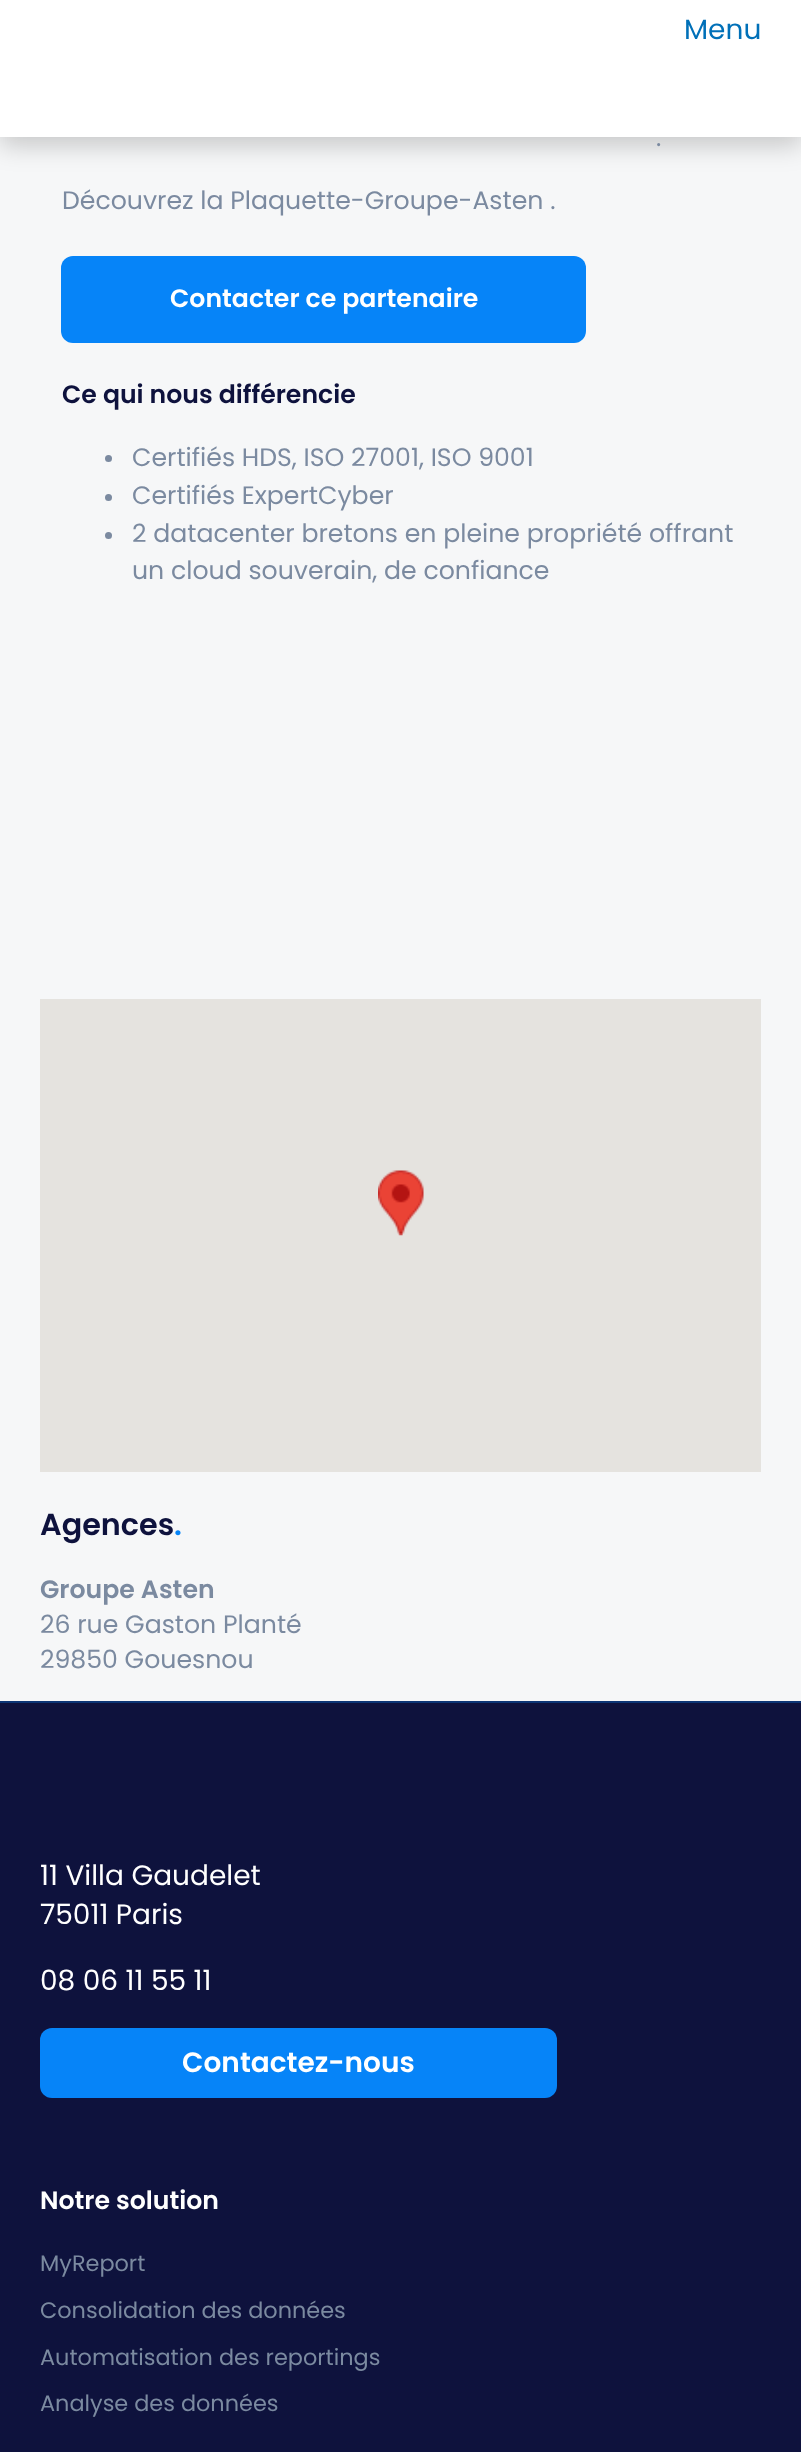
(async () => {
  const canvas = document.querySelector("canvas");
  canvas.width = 801;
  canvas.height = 2452;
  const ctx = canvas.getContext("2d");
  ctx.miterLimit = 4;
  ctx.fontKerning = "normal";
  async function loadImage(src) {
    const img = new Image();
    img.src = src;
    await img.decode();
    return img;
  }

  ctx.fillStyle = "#f6f7f8";
  ctx.fillRect(0, 0, 801, 2452);
  ctx.fillStyle = "rgba(0, 0, 0, 0.2)";
  ctx.filter = "blur(13px)";
  ctx.beginPath();
  ctx.rect(0, 9, 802, 136);
  ctx.fill();
  ctx.filter = "none";
  ctx.fillStyle = "#ffffff";
  ctx.fillRect(0, 0, 801, 137);
  ctx.fillStyle = "#0684f8";
  ctx.beginPath();
  ctx.roundRect(61, 256, 525, 87, 12);
  ctx.fill();
  ctx.fillStyle = "#7b8aa0";
  ctx.beginPath();
  ctx.arc(108.5, 458.5, 3.5, 0, Math.PI * 2);
  ctx.fill();
  ctx.beginPath();
  ctx.arc(108.5, 497.5, 3.5, 0, Math.PI * 2);
  ctx.fill();
  ctx.beginPath();
  ctx.arc(108.5, 535.5, 3.5, 0, Math.PI * 2);
  ctx.fill();
  ctx.fillStyle = "#e5e3df";
  ctx.fillRect(40, 999, 721, 473);
  ctx.drawImage(await loadImage("img/1.png"), 378, 1170, 46, 66);
  ctx.fillStyle = "#0e123d";
  ctx.fillRect(0, 1703, 801, 749);
  ctx.fillStyle = "#0c3575";
  ctx.fillRect(0, 1701, 801, 2);
  ctx.fillStyle = "#0684f8";
  ctx.beginPath();
  ctx.roundRect(40, 2028, 517, 70, 12);
  ctx.fill();
  ctx.font = "28px Poppins";
  ctx.fillStyle = "#0070b8";
  ctx.fillText("Menu", 684, 39);
  ctx.font = "25.2px Poppins";
  ctx.fillStyle = "#7b8aa0";
  ctx.fillText(".", 656, 146);
  ctx.fillText("Découvrez la Plaquette-Groupe-Asten .", 62, 209);
  ctx.font = "600 25.2px Poppins";
  ctx.fillStyle = "#ffffff";
  ctx.fillText("Contacter ce partenaire", 170, 307);
  ctx.fillStyle = "#0e123d";
  ctx.fillText("Ce qui nous différencie", 62, 403);
  ctx.font = "25.2px Poppins";
  ctx.fillStyle = "#7b8aa0";
  for (const [text, x, y] of [
    ["Certifiés HDS, ISO 27001, ISO 9001", 132, 466],
    ["Certifiés ExpertCyber", 132, 504],
    ["2 datacenter bretons en pleine propriété offrant", 132, 542],
    ["un cloud souverain, de confiance", 132, 579],
  ]) {
    ctx.fillText(text, x, y);
  }
  ctx.font = "600 30.25px Poppins";
  ctx.fillStyle = "#0e123d";
  ctx.fillText("Agences", 40, 1535);
  ctx.fillStyle = "#0684f8";
  ctx.fillText(".", 174, 1535);
  ctx.font = "600 25.2px Poppins";
  ctx.fillStyle = "#7b8aa0";
  ctx.fillText("Groupe Asten", 40, 1598);
  ctx.font = "25.2px Poppins";
  ctx.fillText("26 rue Gaston Planté", 40, 1633);
  ctx.fillText("29850 Gouesnou", 40, 1668);
  ctx.font = "28px Poppins";
  ctx.fillStyle = "#ffffff";
  for (const [text, x, y] of [
    ["11 Villa Gaudelet", 40, 1885],
    ["75011 Paris", 40, 1924],
    ["08 06 11 55 11", 40, 1990],
  ]) {
    ctx.fillText(text, x, y);
  }
  ctx.font = "600 28px Poppins";
  ctx.fillText("Contactez-nous", 182, 2072);
  ctx.font = "600 25.2px Poppins";
  ctx.fillText("Notre solution", 40, 2209);
  ctx.font = "22.4px Poppins";
  ctx.fillStyle = "#7b8aa0";
  for (const [text, x, y] of [
    ["MyReport", 40, 2271],
    ["Consolidation des données", 40, 2318],
    ["Automatisation des reportings", 40, 2365],
    ["Analyse des données", 40, 2411],
  ]) {
    ctx.fillText(text, x, y);
  }
})();
